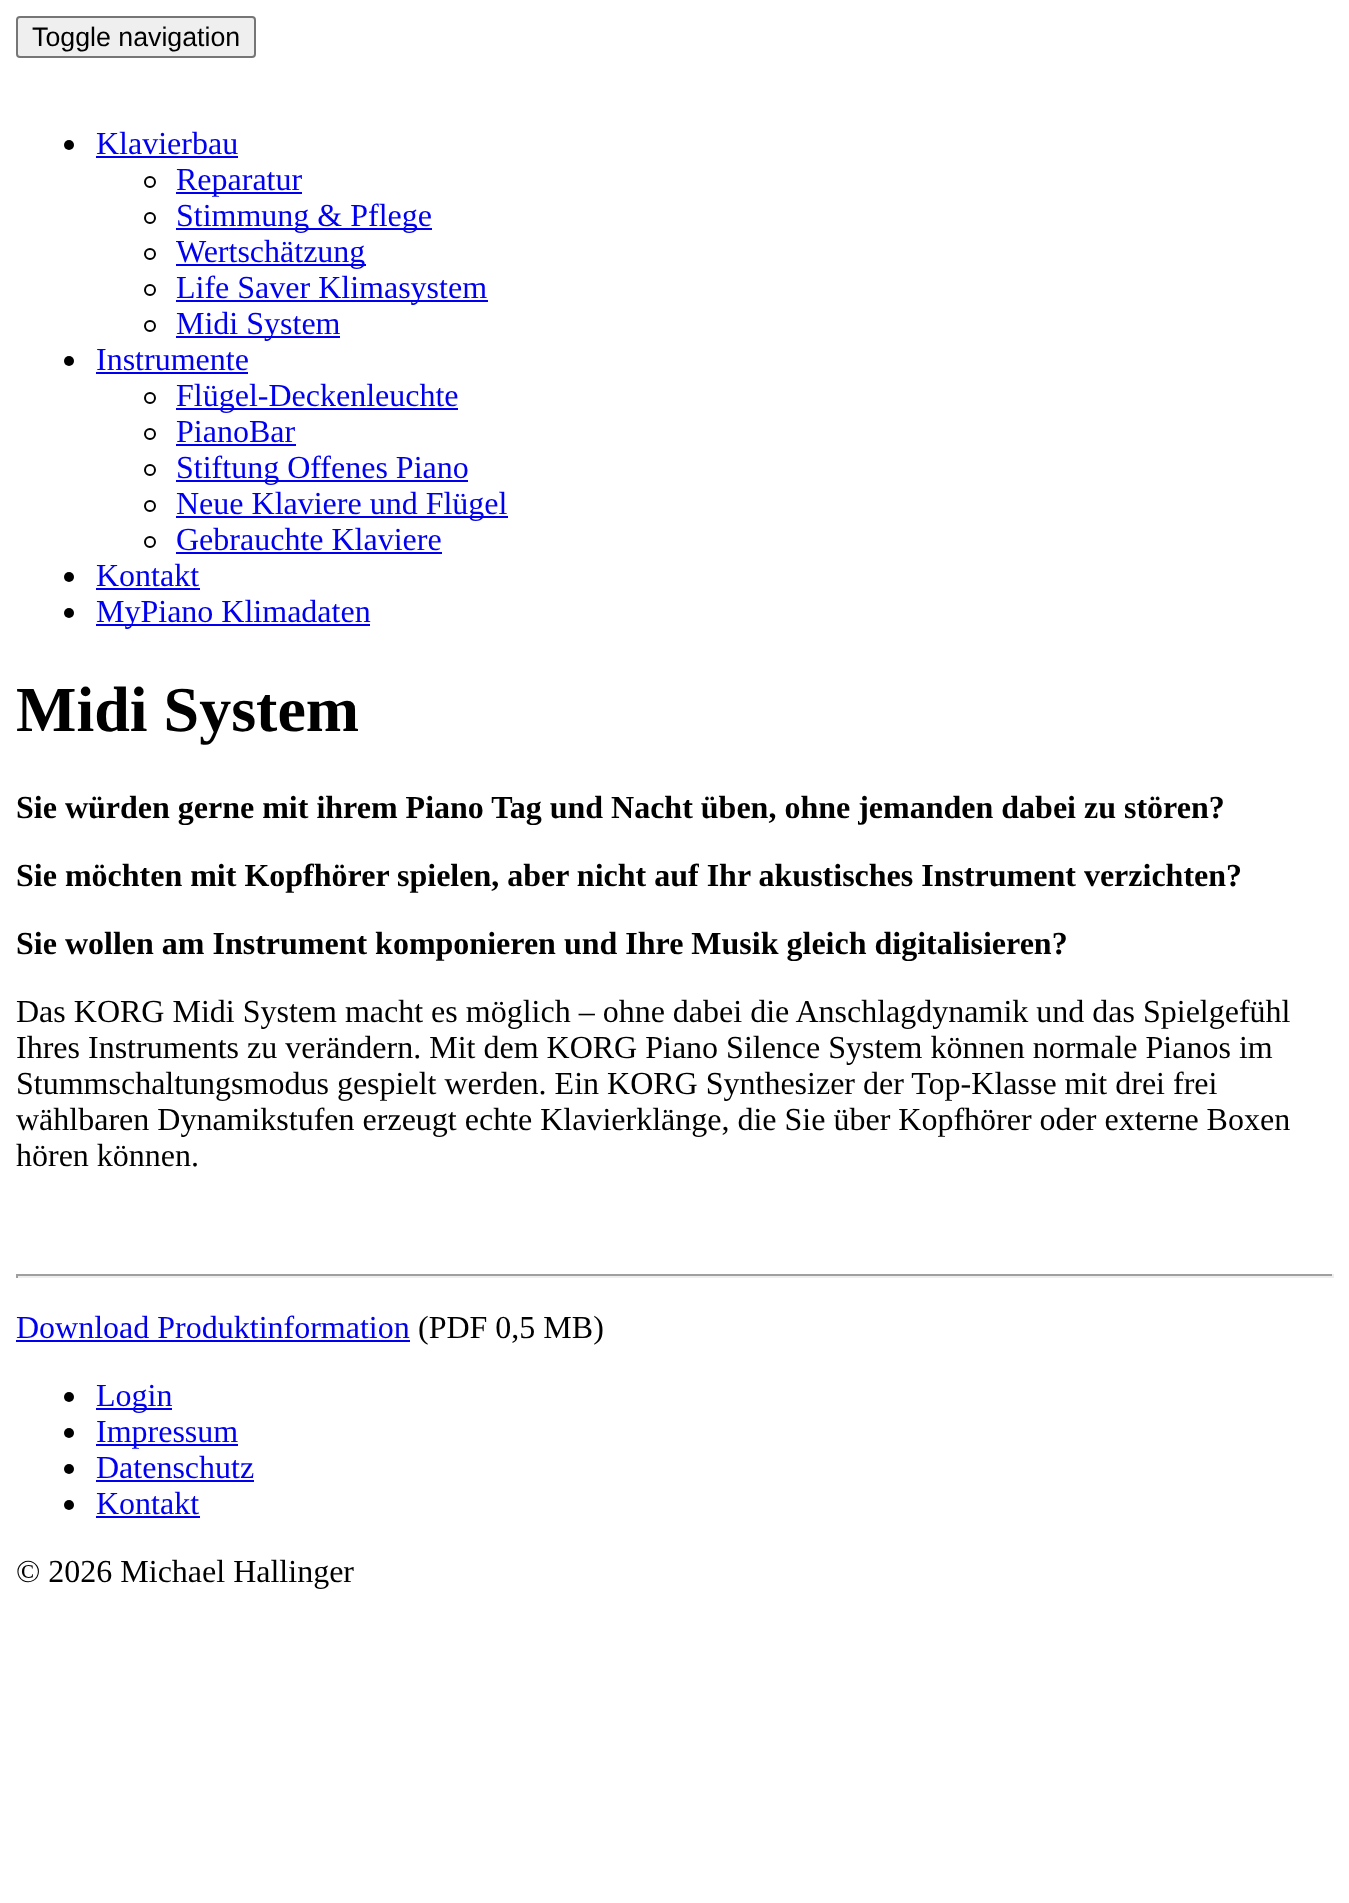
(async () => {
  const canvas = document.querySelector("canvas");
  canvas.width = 1349;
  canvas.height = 1903;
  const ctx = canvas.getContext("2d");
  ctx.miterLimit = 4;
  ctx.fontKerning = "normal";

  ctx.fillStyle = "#ffffff";
  ctx.fillRect(0, 0, 1349, 1903);
  ctx.fillStyle = "#efefef";
  ctx.beginPath();
  ctx.roundRect(17, 17, 238, 40, 3);
  ctx.fill();
  ctx.strokeStyle = "#767676";
  ctx.lineWidth = 2;
  ctx.stroke();
  ctx.fillStyle = "#000000";
  ctx.beginPath();
  ctx.arc(69, 145, 5, 0, Math.PI * 2);
  ctx.fill();
  ctx.fillStyle = "#0000ee";
  ctx.fillRect(96, 156, 142, 2);
  ctx.beginPath();
  ctx.arc(150, 182, 5, 0, Math.PI * 2);
  ctx.strokeStyle = "#000000";
  ctx.stroke();
  ctx.fillRect(176, 192, 126, 2);
  ctx.beginPath();
  ctx.arc(150, 218, 5, 0, Math.PI * 2);
  ctx.stroke();
  ctx.fillRect(176, 228, 256, 2);
  ctx.beginPath();
  ctx.arc(150, 254, 5, 0, Math.PI * 2);
  ctx.stroke();
  ctx.fillRect(176, 264, 190, 2);
  ctx.beginPath();
  ctx.arc(150, 290, 5, 0, Math.PI * 2);
  ctx.stroke();
  ctx.fillRect(176, 300, 312, 2);
  ctx.beginPath();
  ctx.arc(150, 326, 5, 0, Math.PI * 2);
  ctx.stroke();
  ctx.fillRect(176, 336, 164, 2);
  ctx.fillStyle = "#000000";
  ctx.beginPath();
  ctx.arc(69, 361, 5, 0, Math.PI * 2);
  ctx.fill();
  ctx.fillStyle = "#0000ee";
  ctx.fillRect(96, 372, 152, 2);
  ctx.beginPath();
  ctx.arc(150, 398, 5, 0, Math.PI * 2);
  ctx.stroke();
  ctx.fillRect(176, 408, 282, 2);
  ctx.beginPath();
  ctx.arc(150, 434, 5, 0, Math.PI * 2);
  ctx.stroke();
  ctx.fillRect(176, 444, 120, 2);
  ctx.beginPath();
  ctx.arc(150, 470, 5, 0, Math.PI * 2);
  ctx.stroke();
  ctx.fillRect(176, 480, 292, 2);
  ctx.beginPath();
  ctx.arc(150, 506, 5, 0, Math.PI * 2);
  ctx.stroke();
  ctx.fillRect(176, 516, 332, 2);
  ctx.beginPath();
  ctx.arc(150, 542, 5, 0, Math.PI * 2);
  ctx.stroke();
  ctx.fillRect(176, 552, 266, 2);
  ctx.fillStyle = "#000000";
  ctx.beginPath();
  ctx.arc(69, 577, 5, 0, Math.PI * 2);
  ctx.fill();
  ctx.fillStyle = "#0000ee";
  ctx.fillRect(96, 588, 104, 2);
  ctx.fillStyle = "#000000";
  ctx.beginPath();
  ctx.arc(69, 613, 5, 0, Math.PI * 2);
  ctx.fill();
  for (const [x, y, w, h, color] of [
    [96, 624, 274, 2, "#0000ee"],
    [16, 1274, 1318, 2, "#9f9f9f"],
    [1332, 1274, 2, 4, "#eeeeee"],
    [16, 1276, 1318, 2, "#eeeeee"],
    [16, 1274, 2, 4, "#9f9f9f"],
    [16, 1340, 394, 2, "#0000ee"],
  ]) {
    ctx.fillStyle = color;
    ctx.fillRect(x, y, w, h);
  }
  ctx.fillStyle = "#000000";
  ctx.beginPath();
  ctx.arc(69, 1397, 5, 0, Math.PI * 2);
  ctx.fill();
  ctx.fillStyle = "#0000ee";
  ctx.fillRect(96, 1408, 76, 2);
  ctx.fillStyle = "#000000";
  ctx.beginPath();
  ctx.arc(69, 1433, 5, 0, Math.PI * 2);
  ctx.fill();
  ctx.fillStyle = "#0000ee";
  ctx.fillRect(96, 1444, 142, 2);
  ctx.fillStyle = "#000000";
  ctx.beginPath();
  ctx.arc(69, 1469, 5, 0, Math.PI * 2);
  ctx.fill();
  ctx.fillStyle = "#0000ee";
  ctx.fillRect(96, 1480, 158, 2);
  ctx.fillStyle = "#000000";
  ctx.beginPath();
  ctx.arc(69, 1505, 5, 0, Math.PI * 2);
  ctx.fill();
  ctx.fillStyle = "#0000ee";
  ctx.fillRect(96, 1516, 104, 2);
  ctx.font = "26.75px Liberation Sans";
  ctx.fillStyle = "#000000";
  ctx.fillText("Toggle navigation", 32, 46);
  ctx.font = "32px Liberation Serif";
  ctx.fillStyle = "#0000ee";
  for (const [text, x, y] of [
    ["Klavierbau", 96, 154],
    ["Reparatur", 176, 190],
    ["Stimmung & Pflege", 176, 226],
    ["Wertschätzung", 176, 262],
    ["Life Saver Klimasystem", 176, 298],
    ["Midi System", 176, 334],
    ["Instrumente", 96, 370],
    ["Flügel-Deckenleuchte", 176, 406],
    ["PianoBar", 176, 442],
    ["Stiftung Offenes Piano", 176, 478],
    ["Neue Klaviere und Flügel", 176, 514],
    ["Gebrauchte Klaviere", 176, 550],
    ["Kontakt", 96, 586],
    ["MyPiano Klimadaten", 96, 622],
  ]) {
    ctx.fillText(text, x, y);
  }
  ctx.font = "bold 64px Liberation Serif";
  ctx.fillStyle = "#000000";
  ctx.fillText("Midi System", 16, 731);
  ctx.font = "bold 32px Liberation Serif";
  for (const [text, x, y] of [
    ["Sie würden gerne mit ihrem Piano Tag und Nacht üben, ohne jemanden dabei zu stören?", 16, 818],
    ["Sie möchten mit Kopfhörer spielen, aber nicht auf Ihr akustisches Instrument verzichten?", 16, 886],
    ["Sie wollen am Instrument komponieren und Ihre Musik gleich digitalisieren?", 16, 954],
  ]) {
    ctx.fillText(text, x, y);
  }
  ctx.font = "32px Liberation Serif";
  for (const [text, x, y] of [
    ["Das KORG Midi System macht es möglich – ohne dabei die Anschlagdynamik und das Spielgefühl", 16, 1022],
    ["Ihres Instruments zu verändern. Mit dem KORG Piano Silence System können normale Pianos im", 16, 1058],
    ["Stummschaltungsmodus gespielt werden. Ein KORG Synthesizer der Top-Klasse mit drei frei", 16, 1094],
    ["wählbaren Dynamikstufen erzeugt echte Klavierklänge, die Sie über Kopfhörer oder externe Boxen", 16, 1130],
    ["hören können.", 16, 1166],
  ]) {
    ctx.fillText(text, x, y);
  }
  ctx.fillStyle = "#0000ee";
  ctx.fillText("Download Produktinformation", 16, 1338);
  ctx.fillStyle = "#000000";
  ctx.fillText("(PDF 0,5 MB)", 418, 1338);
  ctx.fillStyle = "#0000ee";
  for (const [text, x, y] of [
    ["Login", 96, 1406],
    ["Impressum", 96, 1442],
    ["Datenschutz", 96, 1478],
    ["Kontakt", 96, 1514],
  ]) {
    ctx.fillText(text, x, y);
  }
  ctx.fillStyle = "#000000";
  ctx.fillText("© 2026 Michael Hallinger", 16, 1582);
})();
